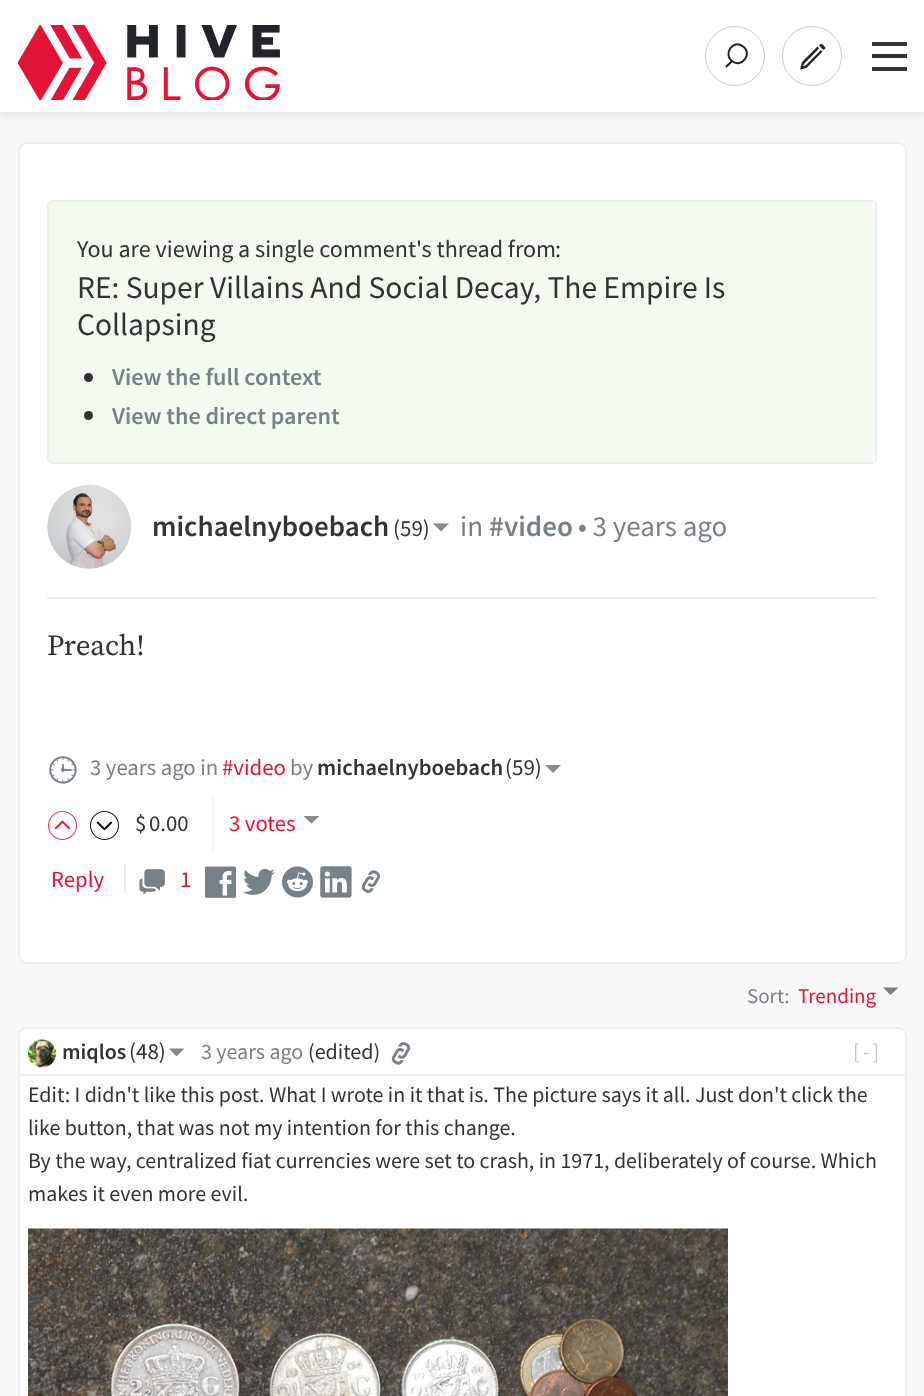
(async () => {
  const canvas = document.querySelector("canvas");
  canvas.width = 924;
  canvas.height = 1396;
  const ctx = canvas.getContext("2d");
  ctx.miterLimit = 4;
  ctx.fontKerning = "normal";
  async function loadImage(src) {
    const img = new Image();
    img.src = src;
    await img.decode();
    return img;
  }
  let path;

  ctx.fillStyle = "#f8f8f8";
  ctx.fillRect(0, 0, 924, 1396);
  ctx.fillStyle = "rgba(0, 0, 0, 0.05)";
  ctx.filter = "blur(3.5px)";
  ctx.beginPath();
  ctx.rect(0, 4, 924, 113);
  ctx.fill();
  ctx.filter = "none";
  ctx.fillStyle = "#ffffff";
  ctx.fillRect(0, 0, 924, 112);
  ctx.fillStyle = "#eeeeee";
  ctx.fillRect(0, 112, 924, 2);
  ctx.drawImage(await loadImage("img/1.png"), 18, 25, 262, 75);
  ctx.beginPath();
  ctx.arc(735, 56, 29.5, 0, Math.PI * 2);
  ctx.strokeStyle = "#cacaca";
  ctx.stroke();
  path = new Path2D("M732 61L726 67L732 61C723 54 733 39 742.5 46C753.5 53 741.5 69 732 61Z");
  ctx.strokeStyle = "#212529";
  ctx.lineWidth = 2;
  ctx.stroke(path);
  ctx.beginPath();
  ctx.arc(812, 56, 29.5, 0, Math.PI * 2);
  ctx.strokeStyle = "#cacaca";
  ctx.lineWidth = 1;
  ctx.stroke();
  ctx.fillStyle = "#212529";
  path = new Path2D("M819 45.5L823.5 50C826 48 826 48 824 46C821.5 43.5 821.5 43 819 45.5ZM817.5 46.5L802 62L800 69.5L806.5 68L822.5 51.5L821 50L805.5 65.5L803 66L804 64L819 48.5Z");
  ctx.fill(path, "evenodd");
  for (const [x, y, w, h, color] of [
    [872, 67, 35, 4, "#333333"],
    [872, 54, 35, 4, "#333333"],
    [872, 42, 35, 4, "#333333"],
  ]) {
    ctx.fillStyle = color;
    ctx.fillRect(x, y, w, h);
  }
  ctx.fillStyle = "#ffffff";
  ctx.beginPath();
  ctx.roundRect(19, 143, 887, 820, 8);
  ctx.fill();
  ctx.strokeStyle = "#eeeeee";
  ctx.lineWidth = 2;
  ctx.stroke();
  ctx.fillStyle = "#eeeeee";
  ctx.fillRect(47, 597, 830, 2);
  ctx.fillStyle = "#f3faf0";
  ctx.beginPath();
  ctx.roundRect(48, 201, 828, 262, 4);
  ctx.fill();
  ctx.stroke();
  ctx.fillStyle = "#333333";
  ctx.beginPath();
  ctx.arc(88.5, 377.5, 4.5, 0, Math.PI * 2);
  ctx.fill();
  ctx.beginPath();
  ctx.arc(88.5, 415.5, 4.5, 0, Math.PI * 2);
  ctx.fill();
  ctx.drawImage(await loadImage("img/2.png"), 47, 484, 85, 85);
  ctx.fillStyle = "#8a8a8a";
  path = new Path2D("M433 523.5L441 531.5L449 523.5Z");
  ctx.fill(path);
  ctx.drawImage(await loadImage("img/3.png"), 49, 756, 28, 28);
  path = new Path2D("M545 765L553 773L561 765Z");
  ctx.fill(path);
  ctx.fillStyle = "#f6f6f6";
  ctx.fillRect(212, 796, 2, 56);
  ctx.drawImage(await loadImage("img/4.png"), 48, 811, 29, 29);
  ctx.drawImage(await loadImage("img/5.png"), 90, 811, 29, 29);
  ctx.fillStyle = "#8a8a8a";
  path = new Path2D("M303.5 816L311.5 823.5L319.5 816Z");
  ctx.fill(path);
  ctx.fillStyle = "#eeeeee";
  ctx.fillRect(124, 865, 2, 29);
  ctx.drawImage(await loadImage("img/6.png"), 139, 869, 26, 26);
  ctx.drawImage(await loadImage("img/7.png"), 205, 866, 31, 32);
  ctx.drawImage(await loadImage("img/8.png"), 243, 869, 32, 26);
  ctx.drawImage(await loadImage("img/9.png"), 282, 866, 31, 32);
  ctx.drawImage(await loadImage("img/10.png"), 320, 866, 32, 32);
  ctx.drawImage(await loadImage("img/11.png"), 361, 870, 19, 23);
  ctx.fillStyle = "#788187";
  path = new Path2D("M883 987.5L890.5 995L898.5 987.5Z");
  ctx.fill(path);
  ctx.fillStyle = "#ffffff";
  ctx.beginPath();
  ctx.roundRect(19, 1028, 887, 47, [8, 8, 0, 0]);
  ctx.fill();
  ctx.stroke();
  ctx.drawImage(await loadImage("img/12.png"), 28, 1039, 28, 29);
  ctx.fillStyle = "#8a8a8a";
  path = new Path2D("M169 1048.5L176.5 1056.5L184.5 1048.5Z");
  ctx.fill(path);
  ctx.drawImage(await loadImage("img/13.png"), 391, 1042, 20, 23);
  for (const [x, y, w, h, color] of [
    [20, 1076, 885, 320, "#ffffff"],
    [905, 1076, 2, 320, "#eeeeee"],
    [18, 1076, 2, 320, "#eeeeee"],
  ]) {
    ctx.fillStyle = color;
    ctx.fillRect(x, y, w, h);
  }
  ctx.drawImage(await loadImage("img/14.png"), 28, 1228, 700, 168);
  ctx.font = "24.1px Source Sans Pro";
  ctx.fillStyle = "#333333";
  ctx.fillText("You are viewing a single comment's thread from", 77, 257);
  ctx.fillText(":", 555, 257);
  ctx.font = "31.5px Source Sans Pro";
  ctx.fillText("RE: Super Villains And Social Decay, The Empire Is", 77, 298);
  ctx.fillText("Collapsing", 77, 335);
  ctx.font = "600 24.1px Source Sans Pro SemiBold";
  ctx.fillStyle = "#788187";
  ctx.fillText("View the full context", 112, 385);
  ctx.fillText("View the direct parent", 112, 424);
  ctx.font = "600 29px Source Sans Pro SemiBold";
  ctx.fillStyle = "#333333";
  ctx.fillText("michaelnyboebach", 152, 536);
  ctx.font = "23px Source Sans Pro";
  ctx.fillText("(59)", 393, 536);
  ctx.font = "29px Source Sans Pro";
  ctx.fillStyle = "#788187";
  ctx.fillText("in", 460, 536);
  ctx.font = "600 29px Source Sans Pro SemiBold";
  ctx.fillText("#video", 489, 536);
  ctx.font = "29px Source Sans Pro";
  ctx.fillText("• 3 years ago", 578, 536);
  ctx.font = "29px Source Serif Pro";
  ctx.fillStyle = "#333333";
  ctx.fillText("Preach!", 47, 655);
  ctx.font = "22.75px Source Sans Pro";
  ctx.fillStyle = "#788187";
  ctx.fillText("3 years ago in", 90, 775);
  ctx.fillStyle = "#e31337";
  ctx.fillText("#video", 222, 775);
  ctx.fillStyle = "#788187";
  ctx.fillText("by", 290, 775);
  ctx.font = "600 22.75px Source Sans Pro SemiBold";
  ctx.fillStyle = "#333333";
  ctx.fillText("michaelnyboebach", 317, 775);
  ctx.font = "23px Source Sans Pro";
  ctx.fillText("(59)", 505, 775);
  ctx.font = "22.75px Source Sans Pro";
  ctx.fillText("$", 135, 831);
  ctx.fillText("0.00", 149, 831);
  ctx.fillStyle = "#e31337";
  for (const [text, x, y] of [
    ["3 votes", 229, 831],
    ["Reply", 51, 887],
    ["1", 180, 887],
  ]) {
    ctx.fillText(text, x, y);
  }
  ctx.font = "21px Source Sans Pro";
  ctx.fillStyle = "#788187";
  ctx.fillText("Sort:", 747, 1003);
  ctx.fillStyle = "#e31337";
  ctx.fillText("Trending", 798, 1003);
  ctx.font = "600 22px Source Sans Pro SemiBold";
  ctx.fillStyle = "#333333";
  ctx.fillText("miqlos", 62, 1059);
  ctx.font = "23px Source Sans Pro";
  ctx.fillText("(48)", 129, 1059);
  ctx.font = "22px Source Sans Pro";
  ctx.fillStyle = "#788187";
  ctx.fillText("3 years ago", 201, 1059);
  ctx.fillStyle = "#333333";
  ctx.fillText("(edited)", 308, 1059);
  ctx.letterSpacing = "3px";
  ctx.fillStyle = "#cacaca";
  ctx.fillText("[-]", 853, 1059);
  ctx.letterSpacing = "0px";
  ctx.font = "21.95px Source Sans Pro";
  ctx.fillStyle = "#333333";
  for (const [text, x, y] of [
    ["Edit: I didn't like this post. What I wrote in it that is. The picture says it all. Just don't click the", 28, 1102],
    ["like button, that was not my intention for this change.", 28, 1135],
    ["By the way, centralized fiat currencies were set to crash, in 1971, deliberately of course. Which", 28, 1168],
    ["makes it even more evil.", 28, 1201],
  ]) {
    ctx.fillText(text, x, y);
  }
})();
